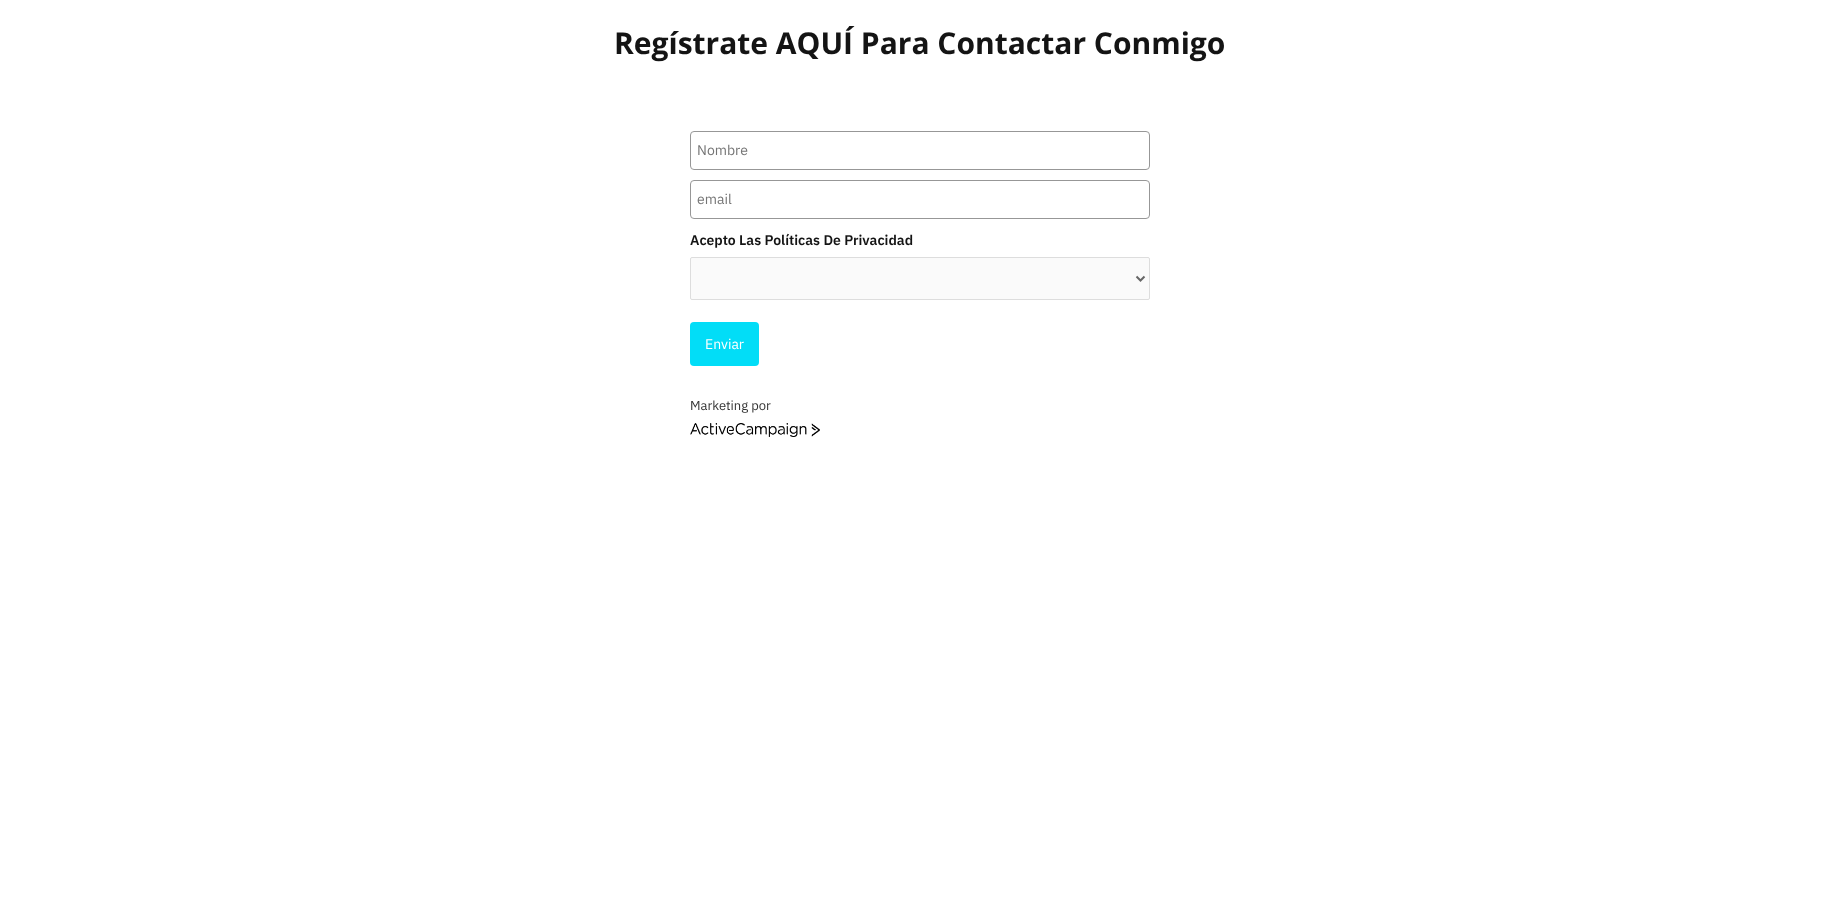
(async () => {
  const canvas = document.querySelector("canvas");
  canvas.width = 1839;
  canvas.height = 906;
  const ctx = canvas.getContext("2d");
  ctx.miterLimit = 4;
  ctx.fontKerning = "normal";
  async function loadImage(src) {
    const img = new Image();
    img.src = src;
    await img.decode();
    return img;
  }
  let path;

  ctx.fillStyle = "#ffffff";
  ctx.fillRect(0, 0, 1839, 906);
  ctx.beginPath();
  ctx.roundRect(690.5, 131.5, 459, 38, 3.5);
  ctx.strokeStyle = "#979797";
  ctx.stroke();
  ctx.beginPath();
  ctx.roundRect(690.5, 180.5, 459, 38, 3.5);
  ctx.stroke();
  ctx.fillStyle = "#fafafa";
  ctx.beginPath();
  ctx.roundRect(690.5, 257.5, 459, 42, 1.5);
  ctx.fill();
  ctx.strokeStyle = "#dddddd";
  ctx.stroke();
  path = new Path2D("M1136.5 276.5L1140.5 280.5L1144.5 276.5");
  ctx.strokeStyle = "#666666";
  ctx.lineWidth = 2;
  ctx.stroke(path);
  ctx.fillStyle = "#02ddf7";
  ctx.beginPath();
  ctx.roundRect(690, 322, 69, 44, 4);
  ctx.fill();
  ctx.drawImage(await loadImage("img/1.png"), 690, 423, 130, 14);
  ctx.font = "bold 30px Open Sans";
  ctx.fillStyle = "#141414";
  ctx.fillText("Regístrate AQUÍ Para Contactar Conmigo", 614, 54);
  ctx.font = "14px IBM Plex Sans";
  ctx.fillStyle = "#757575";
  ctx.fillText("Nombre", 697, 155);
  ctx.fillText("email", 697, 204);
  ctx.font = "600 14px IBM Plex Sans";
  ctx.fillStyle = "#141414";
  ctx.fillText("Acepto Las Políticas De Privacidad", 690, 245);
  ctx.font = "14px IBM Plex Sans";
  ctx.fillStyle = "#ffffff";
  ctx.fillText("Enviar", 705, 349);
  ctx.font = "13px IBM Plex Sans";
  ctx.fillStyle = "#333333";
  ctx.fillText("Marketing por", 690, 410);
})();
